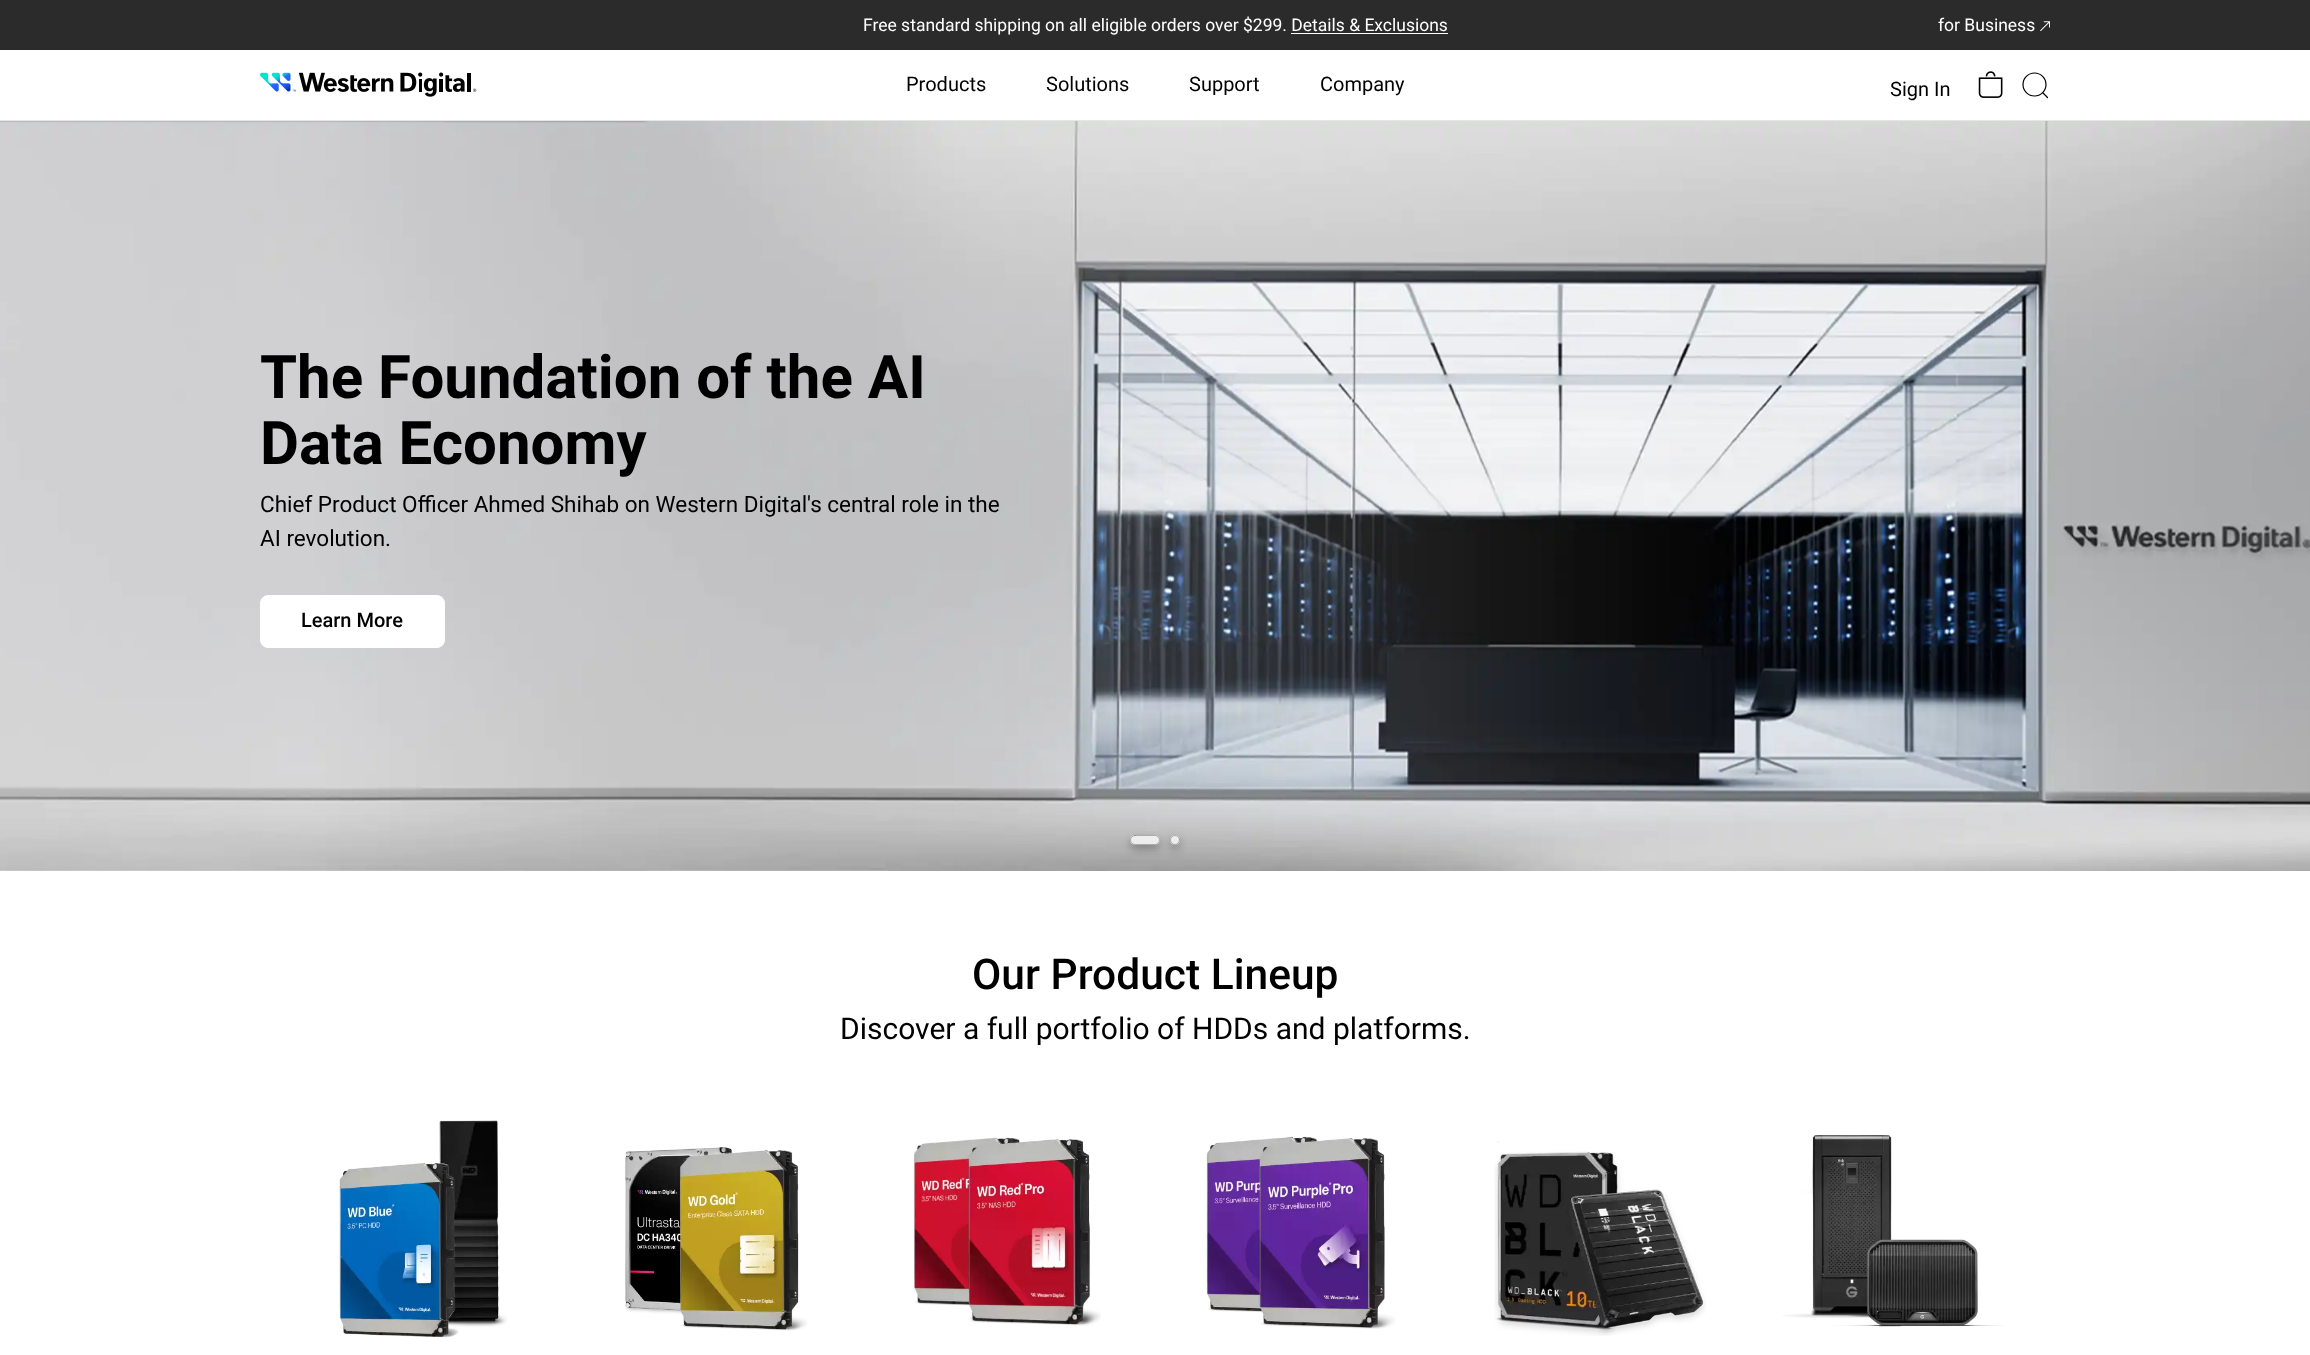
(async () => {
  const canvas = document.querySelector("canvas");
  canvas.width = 2310;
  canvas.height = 1355;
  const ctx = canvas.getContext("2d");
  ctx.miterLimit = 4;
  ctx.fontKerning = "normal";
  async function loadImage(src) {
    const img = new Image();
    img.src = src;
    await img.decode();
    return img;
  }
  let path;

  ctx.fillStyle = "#ffffff";
  ctx.fillRect(0, 0, 2310, 1355);
  for (const [x, y, w, h, color] of [
    [0, 120, 2310, 1, "#e6e6e6"],
    [0, 0, 2310, 50, "#2b2b2b"],
    [1291, 33, 157, 1, "#ffffff"],
  ]) {
    ctx.fillStyle = color;
    ctx.fillRect(x, y, w, h);
  }
  ctx.drawImage(await loadImage("img/1.png"), 2040, 21, 10, 10);
  ctx.drawImage(await loadImage("img/2.png"), 260, 72, 217, 25);
  ctx.drawImage(await loadImage("img/3.png"), 1978, 71, 25, 27);
  ctx.beginPath();
  ctx.arc(2034.5, 84.5, 11.5, 0, Math.PI * 2);
  ctx.strokeStyle = "#000000";
  ctx.lineWidth = 1.2;
  ctx.stroke();
  path = new Path2D("M2047.5 97.5L2043 93");
  ctx.lineCap = "round";
  ctx.stroke(path);
  ctx.drawImage(await loadImage("img/4.png"), 0, 121, 2310, 750);
  ctx.beginPath();
  ctx.roundRect(260.5, 595.5, 184, 52, 7.5);
  ctx.fill();
  ctx.strokeStyle = "#ffffff";
  ctx.lineWidth = 1;
  ctx.stroke();
  ctx.save();
  path = new Path2D("M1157 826H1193V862H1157ZM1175 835C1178 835 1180 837 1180 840C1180 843 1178 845 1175 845C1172 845 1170 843 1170 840C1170 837 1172 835 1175 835Z");
  ctx.clip(path, "evenodd");
  ctx.fillStyle = "rgba(0, 0, 0, 0.29)";
  ctx.filter = "blur(4px)";
  ctx.beginPath();
  ctx.roundRect(1170, 839, 10, 10, 5);
  ctx.fill();
  ctx.filter = "none";
  ctx.restore();
  ctx.fillStyle = "rgba(255, 255, 255, 0.75)";
  ctx.beginPath();
  ctx.arc(1175, 840, 5, 0, Math.PI * 2);
  ctx.fill();
  ctx.beginPath();
  ctx.arc(1175, 840, 4.5, 0, Math.PI * 2);
  ctx.strokeStyle = "rgba(106, 106, 106, 0.5)";
  ctx.stroke();
  ctx.save();
  path = new Path2D("M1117 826H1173V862H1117ZM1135 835H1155C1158 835 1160 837 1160 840C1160 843 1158 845 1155 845H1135C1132 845 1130 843 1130 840C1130 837 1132 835 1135 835Z");
  ctx.clip(path, "evenodd");
  ctx.fillStyle = "rgba(0, 0, 0, 0.29)";
  ctx.filter = "blur(4px)";
  ctx.beginPath();
  ctx.roundRect(1130, 839, 30, 10, 5);
  ctx.fill();
  ctx.filter = "none";
  ctx.restore();
  ctx.beginPath();
  ctx.roundRect(1130, 835, 30, 10, 5);
  ctx.fill();
  ctx.beginPath();
  ctx.roundRect(1130.5, 835.5, 29, 9, 4.5);
  ctx.stroke();
  ctx.drawImage(await loadImage("img/5.png"), 339, 1120, 168, 218);
  ctx.drawImage(await loadImage("img/6.png"), 625, 1147, 182, 184);
  ctx.drawImage(await loadImage("img/7.png"), 913, 1137, 188, 189);
  ctx.drawImage(await loadImage("img/8.png"), 1206, 1136, 189, 193);
  ctx.drawImage(await loadImage("img/9.png"), 1494, 1141, 212, 195);
  ctx.drawImage(await loadImage("img/10.png"), 1783, 1135, 221, 192);
  ctx.font = "17.5px Roboto";
  ctx.fillStyle = "#ffffff";
  ctx.fillText("Free standard shipping on all eligible orders over $299. Details & Exclusions", 863, 31);
  ctx.fillText("for Business", 1938, 31);
  ctx.font = "20px Roboto";
  ctx.fillStyle = "#000000";
  for (const [text, x, y] of [
    ["Products", 906, 91],
    ["Solutions", 1046, 91],
    ["Support", 1189, 91],
    ["Company", 1320, 91],
    ["Sign In", 1890, 96],
  ]) {
    ctx.fillText(text, x, y);
  }
  ctx.font = "bold 60px Roboto";
  ctx.fillText("The Foundation of the AI", 260, 398);
  ctx.fillText("Data Economy", 260, 464);
  ctx.font = "22.5px Roboto";
  ctx.fillText("Chief Product Officer Ahmed Shihab on Western Digital's central role in the", 260, 512);
  ctx.fillText("AI revolution.", 260, 546);
  ctx.font = "500 20px Roboto";
  ctx.fillText("Learn More", 301, 627);
  ctx.font = "500 42.5px Roboto";
  ctx.fillText("Our Product Lineup", 972, 989);
  ctx.font = "30px Roboto";
  ctx.fillText("Discover a full portfolio of HDDs and platforms.", 840, 1039);
})();
